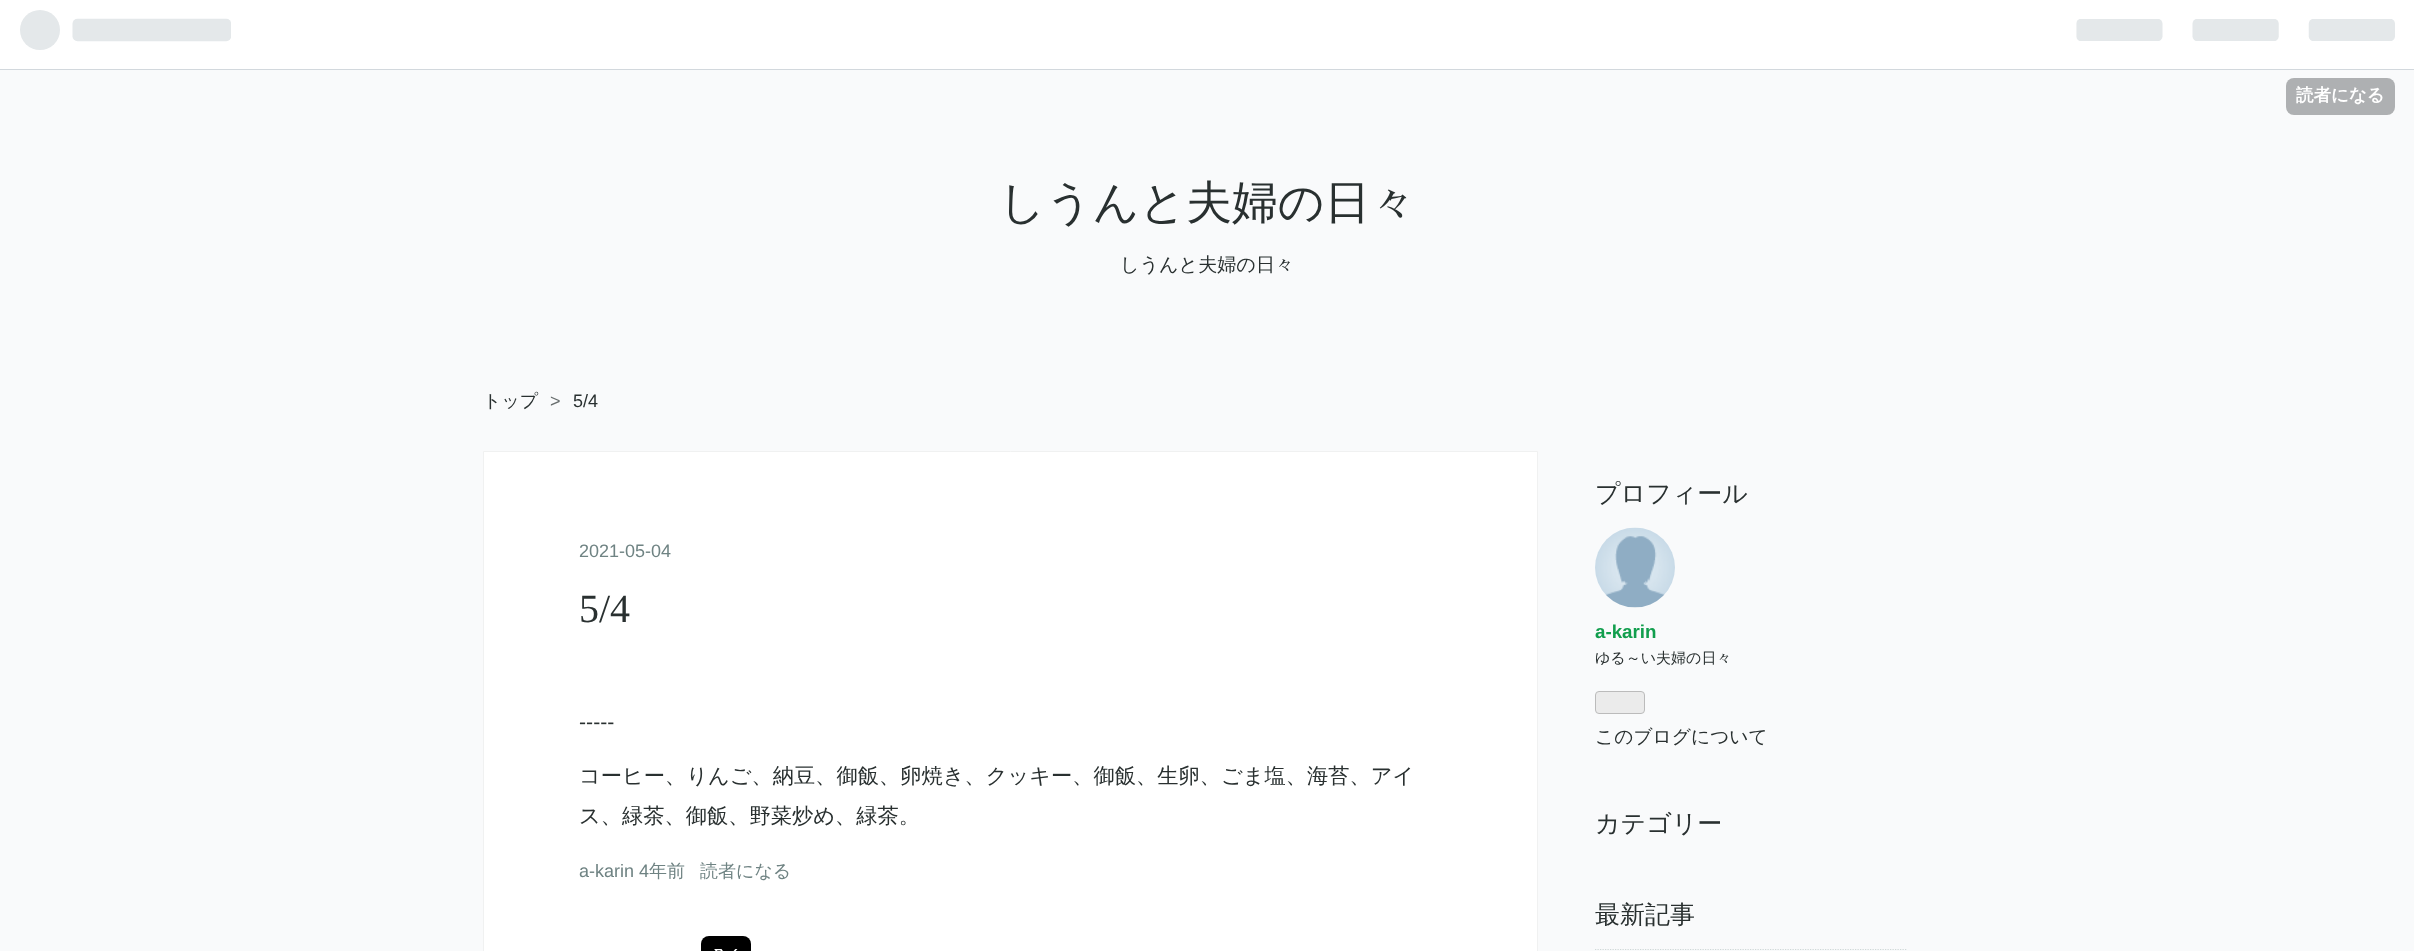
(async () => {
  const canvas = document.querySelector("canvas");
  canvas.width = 2414;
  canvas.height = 951;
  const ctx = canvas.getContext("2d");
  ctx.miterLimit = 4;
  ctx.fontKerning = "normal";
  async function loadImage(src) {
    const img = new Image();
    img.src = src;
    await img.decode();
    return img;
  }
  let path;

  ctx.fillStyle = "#f9fafb";
  ctx.fillRect(0, 0, 2414, 951);
  ctx.fillStyle = "#ffffff";
  ctx.fillRect(0, 0, 2414, 69);
  ctx.fillStyle = "#d2d8dd";
  ctx.fillRect(0, 69, 2414, 1);
  ctx.drawImage(await loadImage("img/1.png"), 20, 10, 211, 40);
  ctx.drawImage(await loadImage("img/2.png"), 2076, 19, 319, 22);
  ctx.fillStyle = "#aeb0b2";
  ctx.beginPath();
  ctx.roundRect(2286, 78, 109, 37, 8);
  ctx.fill();
  ctx.fillStyle = "#ffffff";
  ctx.beginPath();
  ctx.rect(483.5, 451.5, 1054, 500);
  ctx.fill();
  ctx.strokeStyle = "#f0f1f1";
  ctx.stroke();
  ctx.fillStyle = "#000000";
  ctx.beginPath();
  ctx.roundRect(701, 936, 50, 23, 8);
  ctx.fill();
  ctx.drawImage(await loadImage("img/3.png"), 714, 949, 24, 2);
  ctx.drawImage(await loadImage("img/4.png"), 1595, 527, 80, 81);
  ctx.fillStyle = "#ebebeb";
  ctx.beginPath();
  ctx.roundRect(1595.5, 691.5, 49, 22, 3.5);
  ctx.fill();
  ctx.strokeStyle = "#bbbbbb";
  ctx.stroke();
  path = new Path2D("M1595 949.5H1907.5");
  ctx.strokeStyle = "#cfd8d8";
  ctx.lineWidth = 1.2;
  ctx.setLineDash([1.25, 1.25]);
  ctx.stroke(path);
  ctx.font = "bold 17.5px WenQuanYi Zen Hei";
  ctx.fillStyle = "#ffffff";
  ctx.fillText("読者になる", 2296, 101);
  ctx.font = "500 45.75px WenQuanYi Zen Hei";
  ctx.fillStyle = "#293030";
  ctx.fillText("しうんと夫婦の日々", 999, 218);
  ctx.font = "500 19.1px WenQuanYi Zen Hei";
  ctx.fillText("しうんと夫婦の日々", 1120, 271);
  ctx.font = "500 18px WenQuanYi Zen Hei";
  ctx.fillText("トップ", 483, 407);
  ctx.font = "18px Liberation Sans";
  ctx.fillStyle = "#676d6d";
  ctx.fillText(">", 550, 407);
  ctx.fillStyle = "#293030";
  ctx.fillText("5/4", 573, 407);
  ctx.fillStyle = "#6f8383";
  ctx.fillText("2021-05-04", 579, 557);
  ctx.font = "40px Liberation Serif";
  ctx.fillStyle = "#293030";
  ctx.fillText("5/4", 579, 622);
  ctx.font = "21.25px Liberation Sans";
  ctx.fillText("-----", 579, 729);
  ctx.font = "500 21.25px WenQuanYi Zen Hei";
  ctx.fillText("コーヒー、りんご、納豆、御飯、卵焼き、クッキー、御飯、生卵、ごま塩、海苔、アイ", 579, 783);
  ctx.fillText("ス、緑茶、御飯、野菜炒め、緑茶。", 579, 823);
  ctx.font = "18px Liberation Sans";
  ctx.fillStyle = "#6f8383";
  ctx.fillText("a-karin 4", 579, 877);
  ctx.font = "500 18px WenQuanYi Zen Hei";
  ctx.fillText("年前", 649, 877);
  ctx.fillText("読者になる", 700, 877);
  ctx.font = "500 25px WenQuanYi Zen Hei";
  ctx.fillStyle = "#293030";
  ctx.fillText("プロフィール", 1595, 502);
  ctx.font = "bold 18.75px Liberation Sans";
  ctx.fillStyle = "#119e4d";
  ctx.fillText("a-karin", 1595, 638);
  ctx.font = "500 15px WenQuanYi Zen Hei";
  ctx.fillStyle = "#293030";
  ctx.fillText("ゆる～い夫婦の日々", 1595, 663);
  ctx.font = "500 18.75px WenQuanYi Zen Hei";
  ctx.fillText("このブログについて", 1595, 743);
  ctx.font = "500 25px WenQuanYi Zen Hei";
  ctx.fillText("カテゴリー", 1595, 832);
  ctx.fillText("最新記事", 1595, 923);
})();
